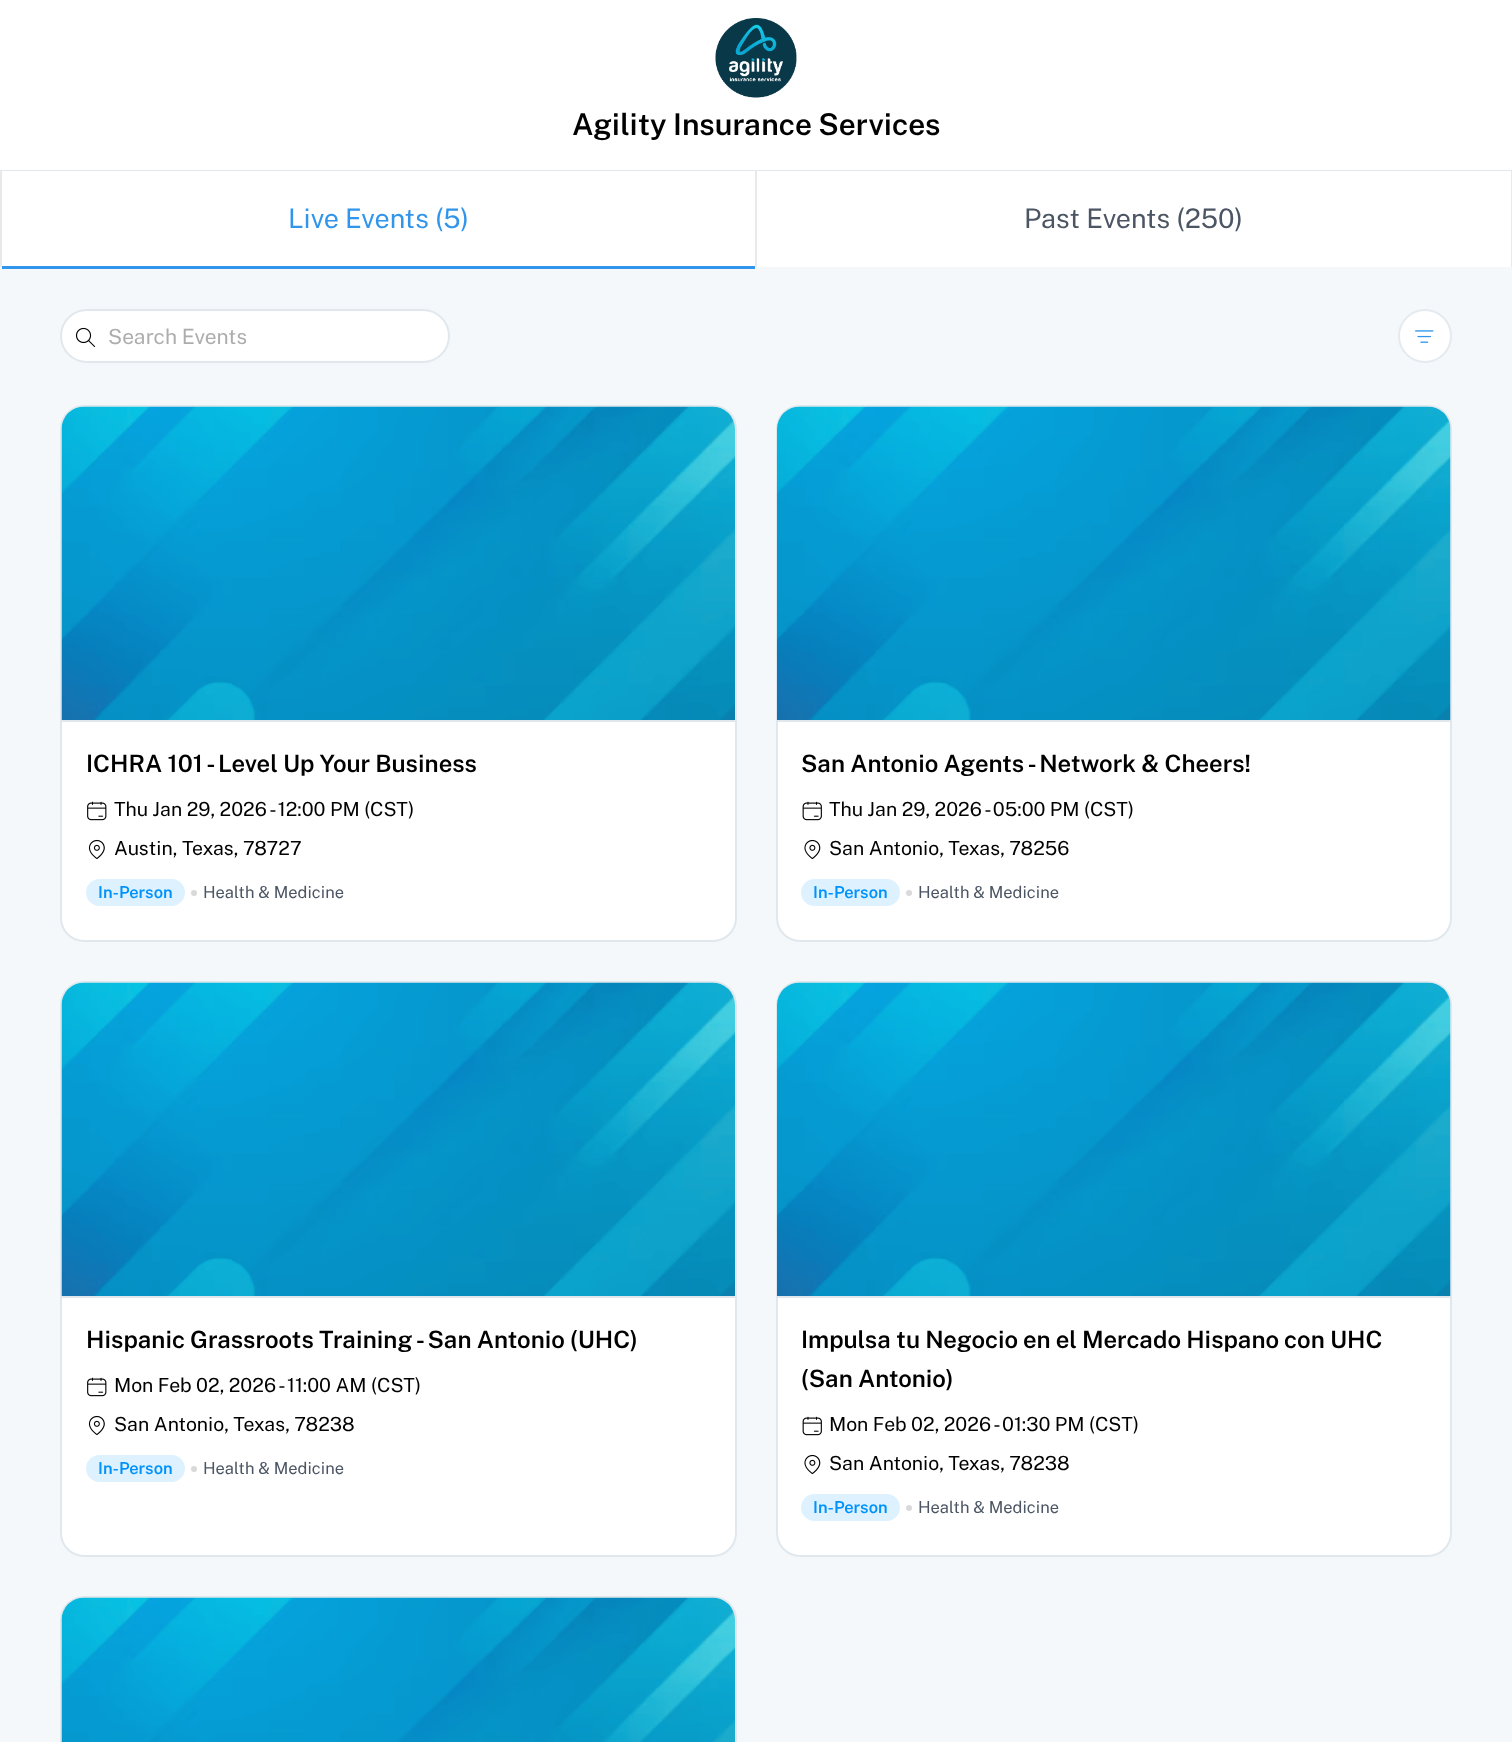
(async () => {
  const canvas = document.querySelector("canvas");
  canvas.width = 1512;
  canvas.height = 1742;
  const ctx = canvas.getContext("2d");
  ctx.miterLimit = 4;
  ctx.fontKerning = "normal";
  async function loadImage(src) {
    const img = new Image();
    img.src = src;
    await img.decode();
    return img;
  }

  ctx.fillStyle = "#f4f8fa";
  ctx.fillRect(0, 0, 1512, 1742);
  ctx.fillStyle = "#ffffff";
  ctx.fillRect(0, 0, 1512, 170);
  ctx.fillStyle = "#e1e8ed";
  ctx.fillRect(0, 170, 1512, 1);
  ctx.drawImage(await loadImage("img/1.png"), 715, 18, 82, 80);
  for (const [x, y, w, h, color] of [
    [2, 171, 1509, 96, "#ffffff"],
    [755, 171, 2, 96, "#e9e9e9"],
    [0, 171, 2, 96, "#e9e9e9"],
    [2, 266, 753, 3, "#3195eb"],
    [1511, 171, 1, 96, "#e9e9e9"],
  ]) {
    ctx.fillStyle = color;
    ctx.fillRect(x, y, w, h);
  }
  ctx.fillStyle = "#ffffff";
  ctx.beginPath();
  ctx.roundRect(61, 310, 388, 52, 26);
  ctx.fill();
  ctx.strokeStyle = "#e1e8ed";
  ctx.lineWidth = 2;
  ctx.stroke();
  ctx.drawImage(await loadImage("img/2.png"), 75, 327, 21, 20);
  ctx.beginPath();
  ctx.arc(1425, 336, 26, 0, Math.PI * 2);
  ctx.fill();
  ctx.strokeStyle = "#e4eaef";
  ctx.stroke();
  ctx.drawImage(await loadImage("img/3.png"), 1415, 330, 19, 13);
  ctx.beginPath();
  ctx.roundRect(61, 406, 675, 535, 23);
  ctx.fill();
  ctx.strokeStyle = "#e1e8ed";
  ctx.stroke();
  ctx.fillStyle = "#e1e8ed";
  ctx.fillRect(62, 720, 673, 2);
  ctx.drawImage(await loadImage("img/4.png"), 61, 406, 674, 314);
  ctx.drawImage(await loadImage("img/5.png"), 87, 801, 20, 20);
  ctx.drawImage(await loadImage("img/6.png"), 88, 839, 17, 20);
  ctx.fillStyle = "#def1ff";
  ctx.beginPath();
  ctx.roundRect(86, 879, 99, 27, 13.5);
  ctx.fill();
  ctx.fillStyle = "#d9d9d9";
  ctx.beginPath();
  ctx.arc(194, 893, 3, 0, Math.PI * 2);
  ctx.fill();
  ctx.fillStyle = "#ffffff";
  ctx.beginPath();
  ctx.roundRect(777, 406, 674, 535, 23);
  ctx.fill();
  ctx.stroke();
  ctx.fillStyle = "#e1e8ed";
  ctx.fillRect(777, 720, 674, 2);
  ctx.drawImage(await loadImage("img/7.png"), 777, 406, 674, 314);
  ctx.drawImage(await loadImage("img/8.png"), 802, 801, 20, 20);
  ctx.drawImage(await loadImage("img/9.png"), 804, 839, 17, 20);
  ctx.fillStyle = "#def1ff";
  ctx.beginPath();
  ctx.roundRect(801, 879, 99, 27, 13.5);
  ctx.fill();
  ctx.fillStyle = "#d9d9d9";
  ctx.beginPath();
  ctx.arc(909, 893, 3, 0, Math.PI * 2);
  ctx.fill();
  ctx.fillStyle = "#ffffff";
  ctx.beginPath();
  ctx.roundRect(61, 982, 675, 574, 23);
  ctx.fill();
  ctx.stroke();
  ctx.fillStyle = "#e1e8ed";
  ctx.fillRect(62, 1296, 673, 2);
  ctx.drawImage(await loadImage("img/10.png"), 61, 982, 674, 314);
  ctx.drawImage(await loadImage("img/5.png"), 87, 1377, 20, 20);
  ctx.drawImage(await loadImage("img/6.png"), 88, 1415, 17, 20);
  ctx.fillStyle = "#def1ff";
  ctx.beginPath();
  ctx.roundRect(86, 1455, 99, 27, 13.5);
  ctx.fill();
  ctx.fillStyle = "#d9d9d9";
  ctx.beginPath();
  ctx.arc(194, 1469, 3, 0, Math.PI * 2);
  ctx.fill();
  ctx.fillStyle = "#ffffff";
  ctx.beginPath();
  ctx.roundRect(777, 982, 674, 574, 23);
  ctx.fill();
  ctx.stroke();
  ctx.fillStyle = "#e1e8ed";
  ctx.fillRect(777, 1296, 674, 2);
  ctx.drawImage(await loadImage("img/11.png"), 777, 982, 674, 314);
  ctx.drawImage(await loadImage("img/8.png"), 802, 1416, 20, 20);
  ctx.drawImage(await loadImage("img/9.png"), 804, 1454, 17, 20);
  ctx.fillStyle = "#def1ff";
  ctx.beginPath();
  ctx.roundRect(801, 1494, 99, 27, 13.5);
  ctx.fill();
  ctx.fillStyle = "#d9d9d9";
  ctx.beginPath();
  ctx.arc(909, 1508, 3, 0, Math.PI * 2);
  ctx.fill();
  ctx.beginPath();
  ctx.roundRect(61, 1597, 675, 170, 23);
  ctx.stroke();
  ctx.drawImage(await loadImage("img/12.png"), 61, 1597, 674, 145);
  ctx.font = "600 30px Public Sans";
  ctx.fillStyle = "#000000";
  ctx.fillText("Agility Insurance Services", 572, 135);
  ctx.font = "27px Public Sans";
  ctx.fillStyle = "#3195eb";
  ctx.fillText("Live Events (5)", 288, 228);
  ctx.fillStyle = "#4b5563";
  ctx.fillText("Past Events (250)", 1024, 228);
  ctx.font = "21px Public Sans";
  ctx.fillStyle = "#adadad";
  ctx.fillText("Search Events", 108, 344);
  ctx.font = "600 24px Public Sans";
  ctx.fillStyle = "#000000";
  ctx.fillText("ICHRA 101 - Level Up Your Business", 86, 772);
  ctx.font = "19.5px Public Sans";
  ctx.fillText("Thu Jan 29, 2026 - 12:00 PM (CST)", 114, 816);
  ctx.fillText("Austin, Texas, 78727", 114, 855);
  ctx.font = "600 16.5px Public Sans";
  ctx.fillStyle = "#0193fb";
  ctx.fillText("In-Person", 98, 898);
  ctx.font = "16.5px Public Sans";
  ctx.fillStyle = "#4b5563";
  ctx.fillText("Health & Medicine", 203, 898);
  ctx.font = "600 24px Public Sans";
  ctx.fillStyle = "#000000";
  ctx.fillText("San Antonio Agents - Network & Cheers!", 801, 772);
  ctx.font = "19.5px Public Sans";
  ctx.fillText("Thu Jan 29, 2026 - 05:00 PM (CST)", 829, 816);
  ctx.fillText("San Antonio, Texas, 78256", 829, 855);
  ctx.font = "600 16.5px Public Sans";
  ctx.fillStyle = "#0193fb";
  ctx.fillText("In-Person", 813, 898);
  ctx.font = "16.5px Public Sans";
  ctx.fillStyle = "#4b5563";
  ctx.fillText("Health & Medicine", 918, 898);
  ctx.font = "600 24px Public Sans";
  ctx.fillStyle = "#000000";
  ctx.fillText("Hispanic Grassroots Training - San Antonio (UHC)", 86, 1348);
  ctx.font = "19.5px Public Sans";
  ctx.fillText("Mon Feb 02, 2026 - 11:00 AM (CST)", 114, 1392);
  ctx.fillText("San Antonio, Texas, 78238", 114, 1431);
  ctx.font = "600 16.5px Public Sans";
  ctx.fillStyle = "#0193fb";
  ctx.fillText("In-Person", 98, 1474);
  ctx.font = "16.5px Public Sans";
  ctx.fillStyle = "#4b5563";
  ctx.fillText("Health & Medicine", 203, 1474);
  ctx.font = "600 24px Public Sans";
  ctx.fillStyle = "#000000";
  ctx.fillText("Impulsa tu Negocio en el Mercado Hispano con UHC", 801, 1348);
  ctx.fillText("(San Antonio)", 801, 1387);
  ctx.font = "19.5px Public Sans";
  ctx.fillText("Mon Feb 02, 2026 - 01:30 PM (CST)", 829, 1431);
  ctx.fillText("San Antonio, Texas, 78238", 829, 1470);
  ctx.font = "600 16.5px Public Sans";
  ctx.fillStyle = "#0193fb";
  ctx.fillText("In-Person", 813, 1513);
  ctx.font = "16.5px Public Sans";
  ctx.fillStyle = "#4b5563";
  ctx.fillText("Health & Medicine", 918, 1513);
})();
